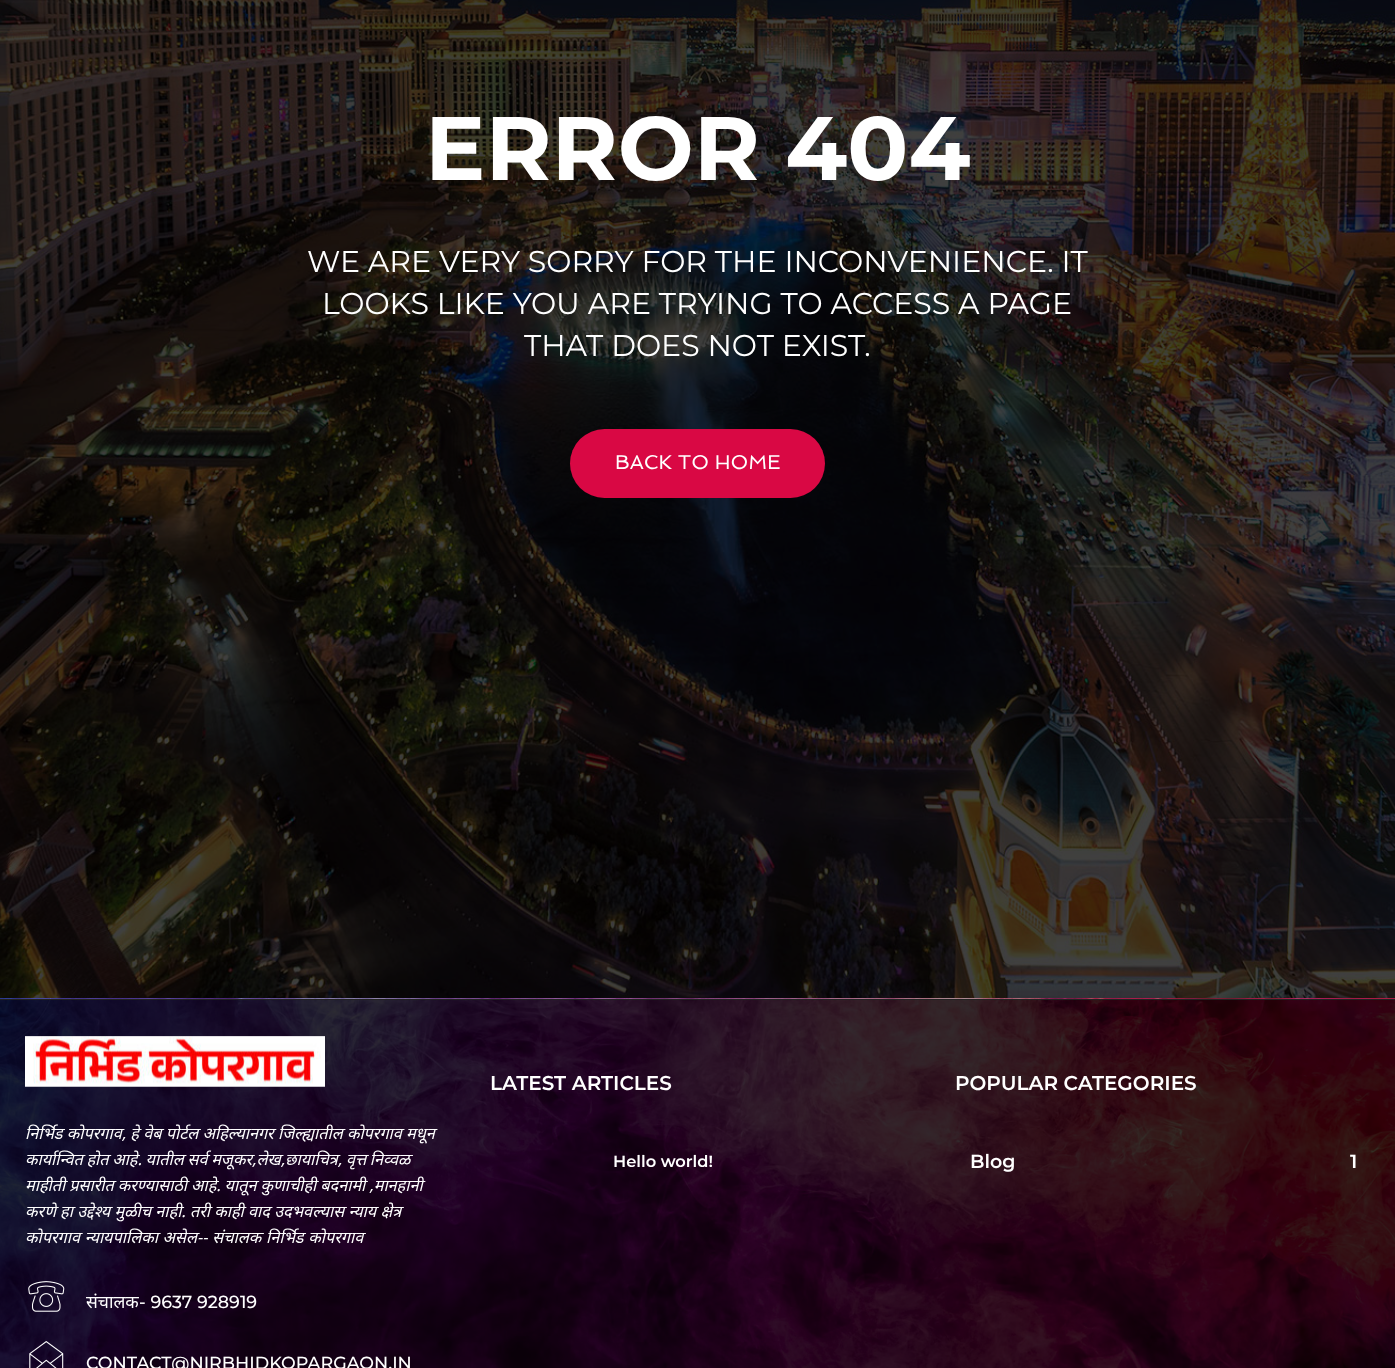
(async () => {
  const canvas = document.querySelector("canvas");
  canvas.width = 1395;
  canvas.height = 1368;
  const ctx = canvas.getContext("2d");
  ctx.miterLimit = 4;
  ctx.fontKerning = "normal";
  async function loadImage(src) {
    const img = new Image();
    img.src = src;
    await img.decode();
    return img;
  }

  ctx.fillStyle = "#404040";
  ctx.fillRect(0, 0, 1395, 1368);
  ctx.drawImage(await loadImage("img/1.png"), 0, 0, 1395, 999);
  ctx.fillStyle = "#d90844";
  ctx.beginPath();
  ctx.roundRect(570, 429, 255, 69, 34.5);
  ctx.fill();
  ctx.drawImage(await loadImage("img/2.png"), 0, 998, 1395, 370);
  ctx.fillStyle = "#222222";
  ctx.fillRect(0, 999, 1395, 1);
  ctx.drawImage(await loadImage("img/3.png"), 25, 1036, 300, 51);
  ctx.drawImage(await loadImage("img/4.png"), 28, 1281, 37, 31);
  ctx.drawImage(await loadImage("img/5.png"), 29, 1341, 35, 27);
  ctx.font = "bold 90px Montserrat";
  ctx.fillStyle = "#ffffff";
  ctx.fillText("ERROR 404", 425, 180);
  ctx.font = "30px Montserrat";
  for (const [text, x, y] of [
    ["WE ARE VERY SORRY FOR THE INCONVENIENCE. IT", 307, 272],
    ["LOOKS LIKE YOU ARE TRYING TO ACCESS A PAGE", 322, 314],
    ["THAT DOES NOT EXIST.", 524, 356],
  ]) {
    ctx.fillText(text, x, y);
  }
  ctx.font = "20px Spinnaker";
  ctx.fillText("BACK TO HOME", 615, 469);
  ctx.font = "italic 16.25px Noto Sans";
  ctx.fillText("निर्भिड कोपरगाव, हे वेब पोर्टल अहिल्यानगर जिल्ह्यातील कोपरगाव मधून", 25, 1139);
  ctx.wordSpacing = "-0.5px";
  ctx.fillText("कार्यान्वित होत आहे. यातील सर्व मजूकर,लेख,छायाचित्र, वृत्त निव्वळ", 25, 1165);
  ctx.wordSpacing = "-0.25px";
  ctx.fillText("माहीती प्रसारीत करण्यासाठी आहे. यातून कुणाचीही बदनामी ,मानहानी", 25, 1191);
  ctx.wordSpacing = "0px";
  ctx.fillText("करणे हा उद्देश्य मुळीच नाही. तरी काही वाद उदभवल्यास न्याय क्षेत्र", 25, 1217);
  ctx.wordSpacing = "0.5px";
  ctx.fillText("कोपरगाव न्यायपालिका असेल-- संचालक निर्भिड कोपरगाव", 25, 1243);
  ctx.wordSpacing = "0px";
  ctx.font = "17.5px Noto Sans";
  ctx.fillText("संचालक", 86, 1308);
  ctx.font = "500 17.5px Montserrat";
  ctx.fillText("- 9637 928919", 139, 1308);
  ctx.fillText("CONTACT@NIRBHIDKOPARGAON.IN", 86, 1369);
  ctx.font = "600 20px Montserrat";
  ctx.fillText("LATEST ARTICLES", 490, 1090);
  ctx.font = "600 16.25px Montserrat";
  ctx.fillText("Hello world!", 613, 1167);
  ctx.font = "600 20px Montserrat";
  ctx.fillText("POPULAR CATEGORIES", 955, 1090);
  ctx.font = "600 19px Montserrat";
  ctx.fillText("Blog", 970, 1168);
  ctx.fillText("1", 1350, 1168);
})();
